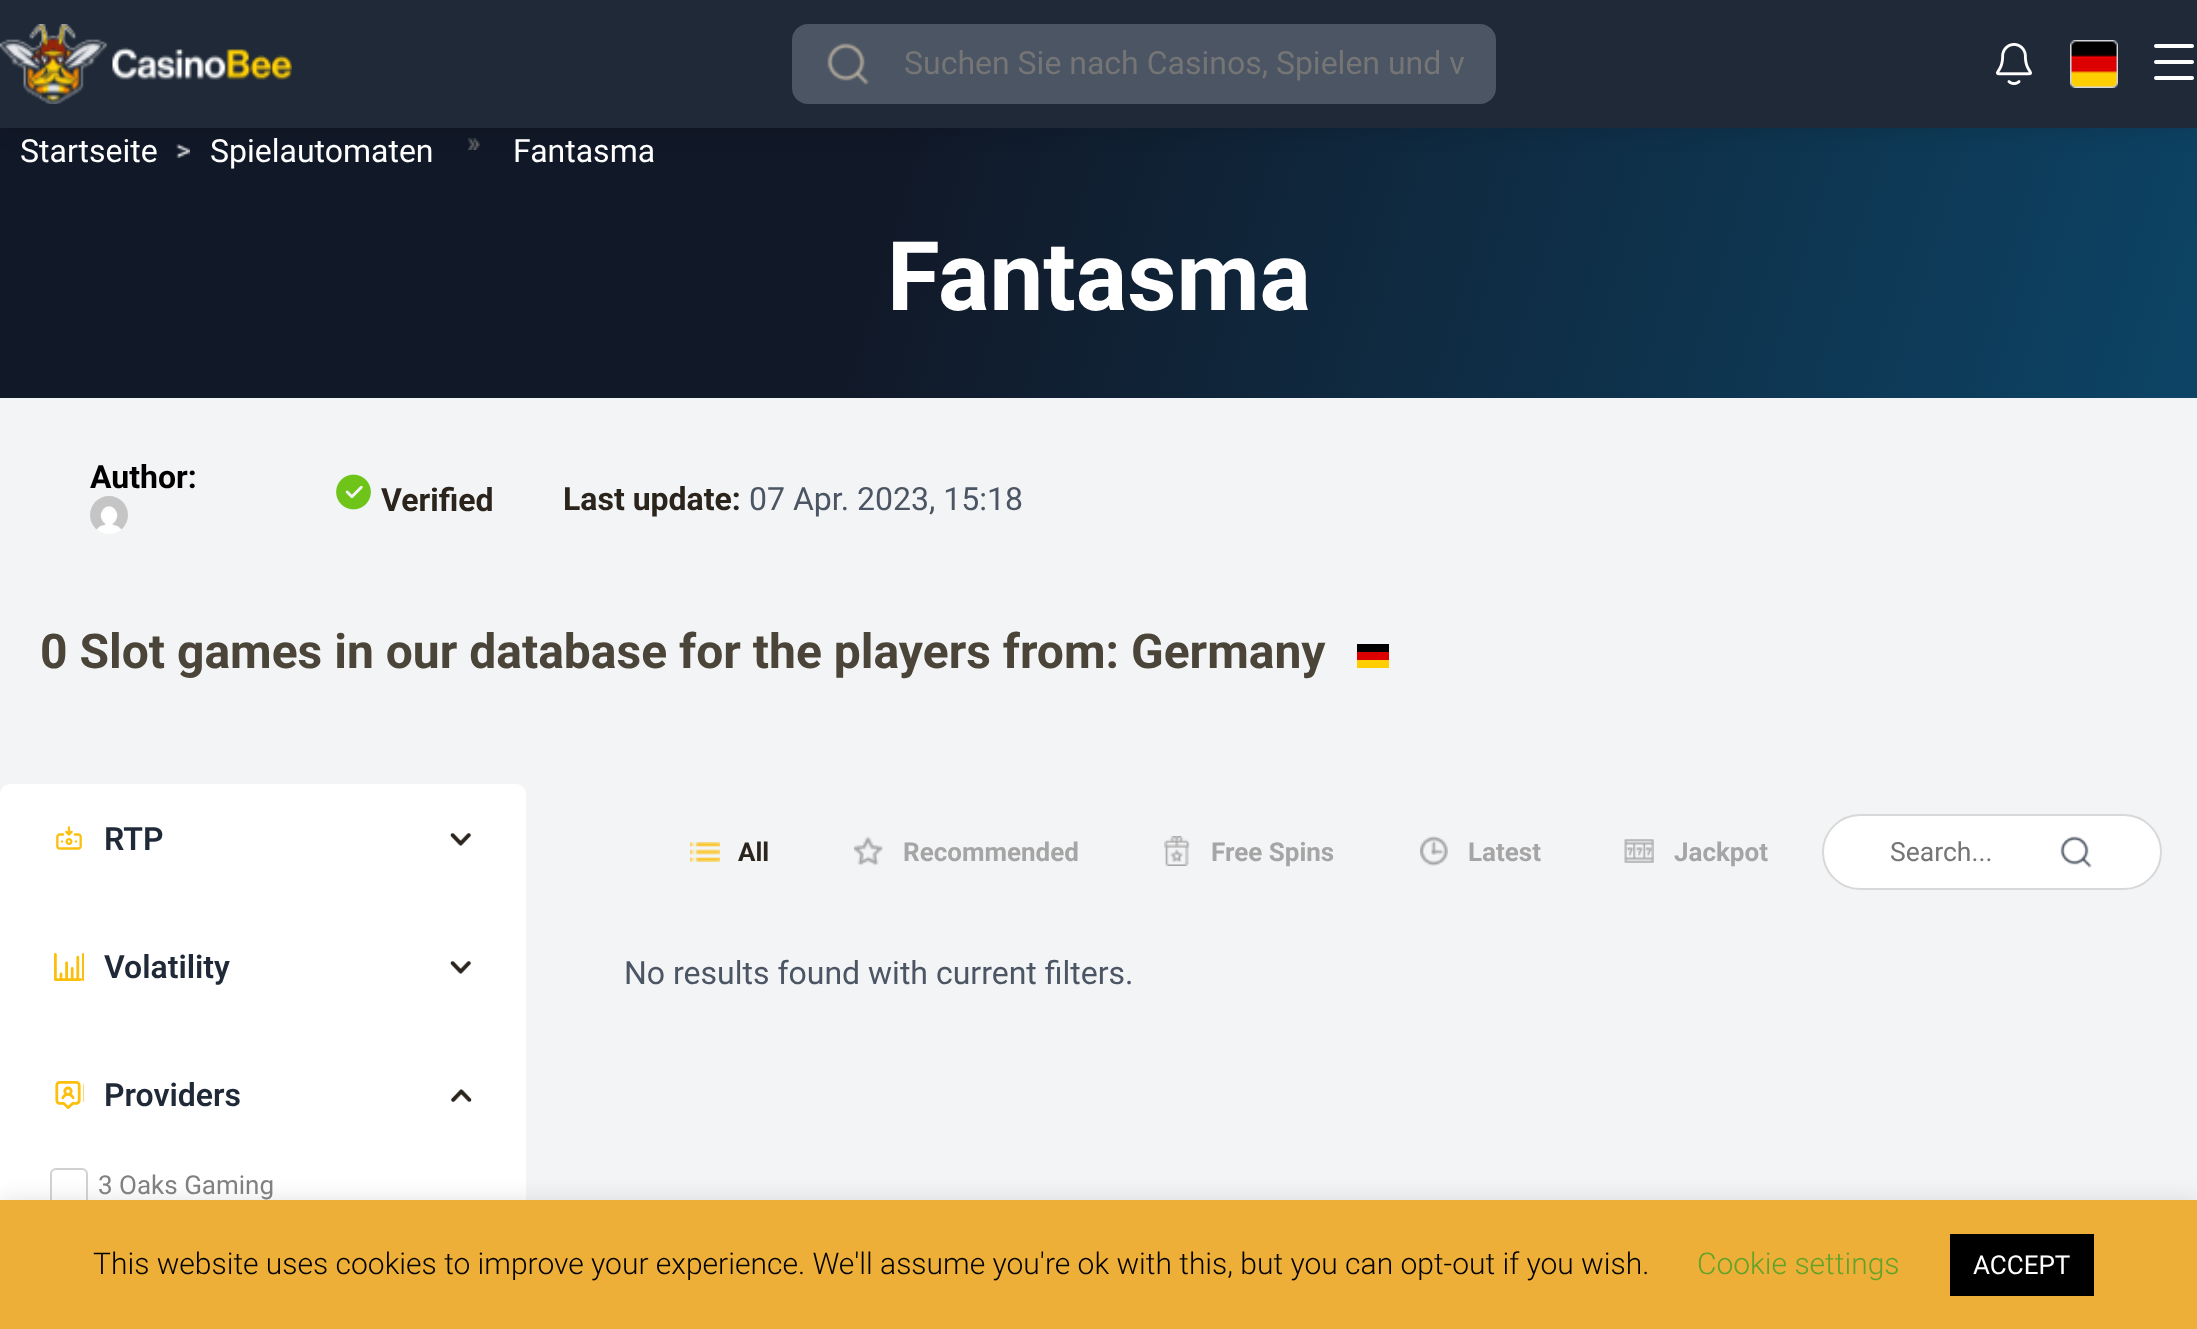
(async () => {
  const canvas = document.querySelector("canvas");
  canvas.width = 2197;
  canvas.height = 1329;
  const ctx = canvas.getContext("2d");
  ctx.miterLimit = 4;
  ctx.fontKerning = "normal";
  async function loadImage(src) {
    const img = new Image();
    img.src = src;
    await img.decode();
    return img;
  }
  let gradient;

  ctx.fillStyle = "#ffffff";
  ctx.fillRect(0, 0, 2197, 1329);
  gradient = ctx.createLinearGradient(50, -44, 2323, 621);
  gradient.addColorStop(0.36, "#111827");
  gradient.addColorStop(1, "#0c4a6e");
  ctx.fillStyle = gradient;
  ctx.fillRect(0, 128, 2197, 270);
  ctx.drawImage(await loadImage("img/5.png"), 176, 144, 14, 14);
  ctx.drawImage(await loadImage("img/6.png"), 468, 138, 12, 12);
  ctx.fillStyle = "rgba(0, 0, 0, 0.1)";
  ctx.filter = "blur(10px)";
  ctx.beginPath();
  ctx.rect(0, 4, 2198, 128);
  ctx.fill();
  ctx.filter = "none";
  ctx.fillStyle = "#1f2937";
  ctx.fillRect(0, 0, 2197, 128);
  ctx.drawImage(await loadImage("img/1.png"), 0, 24, 292, 80);
  ctx.fillStyle = "#4b5563";
  ctx.beginPath();
  ctx.roundRect(792, 24, 704, 80, 16);
  ctx.fill();
  ctx.drawImage(await loadImage("img/2.png"), 827, 43, 42, 42);
  ctx.drawImage(await loadImage("img/3.png"), 1996, 43, 36, 42);
  ctx.drawImage(await loadImage("img/4.png"), 2070, 40, 48, 48);
  ctx.fillStyle = "#ffffff";
  ctx.beginPath();
  ctx.roundRect(2154, 44, 40, 4, 2);
  ctx.fill();
  ctx.beginPath();
  ctx.roundRect(2154, 60, 40, 4, 2);
  ctx.fill();
  ctx.beginPath();
  ctx.roundRect(2154, 76, 40, 4, 2);
  ctx.fill();
  ctx.fillStyle = "#f3f4f6";
  ctx.fillRect(0, 398, 2197, 802);
  ctx.drawImage(await loadImage("img/7.png"), 90, 496, 38, 38);
  ctx.drawImage(await loadImage("img/8.png"), 336, 474, 35, 36);
  for (const [x, y, w, h, color] of [
    [1357, 644, 32, 8, "#000000"],
    [1357, 652, 32, 8, "#dd0000"],
    [1357, 660, 32, 8, "#ffce00"],
  ]) {
    ctx.fillStyle = color;
    ctx.fillRect(x, y, w, h);
  }
  ctx.fillStyle = "#ffffff";
  ctx.beginPath();
  ctx.roundRect(0, 784, 526, 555, 10);
  ctx.fill();
  ctx.drawImage(await loadImage("img/9.png"), 56, 826, 26, 24);
  ctx.drawImage(await loadImage("img/10.png"), 450, 833, 22, 13);
  ctx.drawImage(await loadImage("img/11.png"), 54, 953, 30, 28);
  ctx.drawImage(await loadImage("img/10.png"), 450, 961, 22, 13);
  ctx.drawImage(await loadImage("img/12.png"), 55, 1081, 29, 28);
  ctx.drawImage(await loadImage("img/13.png"), 451, 1089, 21, 13);
  ctx.beginPath();
  ctx.roundRect(51, 1169, 36, 36, 5);
  ctx.strokeStyle = "#d1d1d1";
  ctx.lineWidth = 2;
  ctx.stroke();
  ctx.drawImage(await loadImage("img/14.png"), 690, 842, 30, 20);
  ctx.drawImage(await loadImage("img/15.png"), 854, 836, 29, 30);
  ctx.drawImage(await loadImage("img/16.png"), 1164, 836, 26, 30);
  ctx.drawImage(await loadImage("img/17.png"), 1420, 836, 28, 30);
  ctx.drawImage(await loadImage("img/18.png"), 1624, 839, 30, 24);
  ctx.beginPath();
  ctx.roundRect(1823, 815, 338, 74, 37);
  ctx.fill();
  ctx.strokeStyle = "#d8d8d8";
  ctx.stroke();
  ctx.drawImage(await loadImage("img/19.png"), 2060, 836, 32, 32);
  ctx.fillStyle = "rgba(172, 171, 171, 0.3)";
  ctx.filter = "blur(10px)";
  ctx.beginPath();
  ctx.rect(0, 1198, 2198, 130);
  ctx.fill();
  ctx.filter = "none";
  ctx.fillStyle = "#edaf38";
  ctx.fillRect(0, 1200, 2197, 129);
  ctx.fillStyle = "#000000";
  ctx.fillRect(1950, 1234, 144, 62);
  ctx.font = "32px Roboto";
  ctx.fillStyle = "#757575";
  ctx.fillText("Suchen Sie nach Casinos, Spielen und v", 904, 74);
  ctx.fillStyle = "#ffffff";
  for (const [text, x, y] of [
    ["Startseite", 20, 162],
    ["Spielautomaten", 210, 162],
    ["Fantasma", 513, 162],
  ]) {
    ctx.fillText(text, x, y);
  }
  ctx.font = "bold 96px Roboto";
  ctx.fillText("Fantasma", 887, 310);
  ctx.font = "bold 32px Roboto";
  ctx.fillStyle = "#000000";
  ctx.fillText("Author:", 90, 488);
  ctx.fillStyle = "#2b241c";
  ctx.fillText("Verified", 381, 511);
  ctx.fillText("Last update:", 563, 510);
  ctx.font = "32px Roboto";
  ctx.fillStyle = "#4b5563";
  ctx.fillText("07 Apr. 2023, 15:18", 749, 510);
  ctx.font = "bold 48px Roboto";
  ctx.fillStyle = "#4b4438";
  ctx.fillText("0 Slot games in our database for the players from: Germany", 40, 668);
  ctx.font = "600 32px Roboto";
  ctx.fillStyle = "#1f2937";
  for (const [text, x, y] of [
    ["RTP", 104, 850],
    ["Volatility", 104, 978],
    ["Providers", 104, 1106],
  ]) {
    ctx.fillText(text, x, y);
  }
  ctx.font = "26px Roboto";
  ctx.fillStyle = "#808080";
  ctx.fillText("3 Oaks Gaming", 98, 1194);
  ctx.font = "bold 26px Roboto";
  ctx.fillStyle = "#2b241c";
  ctx.fillText("All", 738, 861);
  ctx.fillStyle = "#a5a5a5";
  for (const [text, x, y] of [
    ["Recommended", 903, 861],
    ["Free Spins", 1211, 861],
    ["Latest", 1468, 861],
    ["Jackpot", 1674, 861],
  ]) {
    ctx.fillText(text, x, y);
  }
  ctx.font = "26.5px Roboto";
  ctx.fillStyle = "#757575";
  ctx.fillText("Search...", 1890, 861);
  ctx.font = "32px Roboto";
  ctx.fillStyle = "#4b5563";
  ctx.fillText("No results found with current filters.", 624, 984);
  ctx.font = "300 30px Roboto";
  ctx.fillStyle = "#000000";
  ctx.fillText("This website uses cookies to improve your experience. We'll assume you're ok with this, but you can opt-out if you wish.", 93, 1274);
  ctx.fillStyle = "#62a329";
  ctx.fillText("Cookie settings", 1697, 1274);
  ctx.font = "26px Roboto";
  ctx.fillStyle = "#ffffff";
  ctx.fillText("ACCEPT", 1973, 1274);
})();
